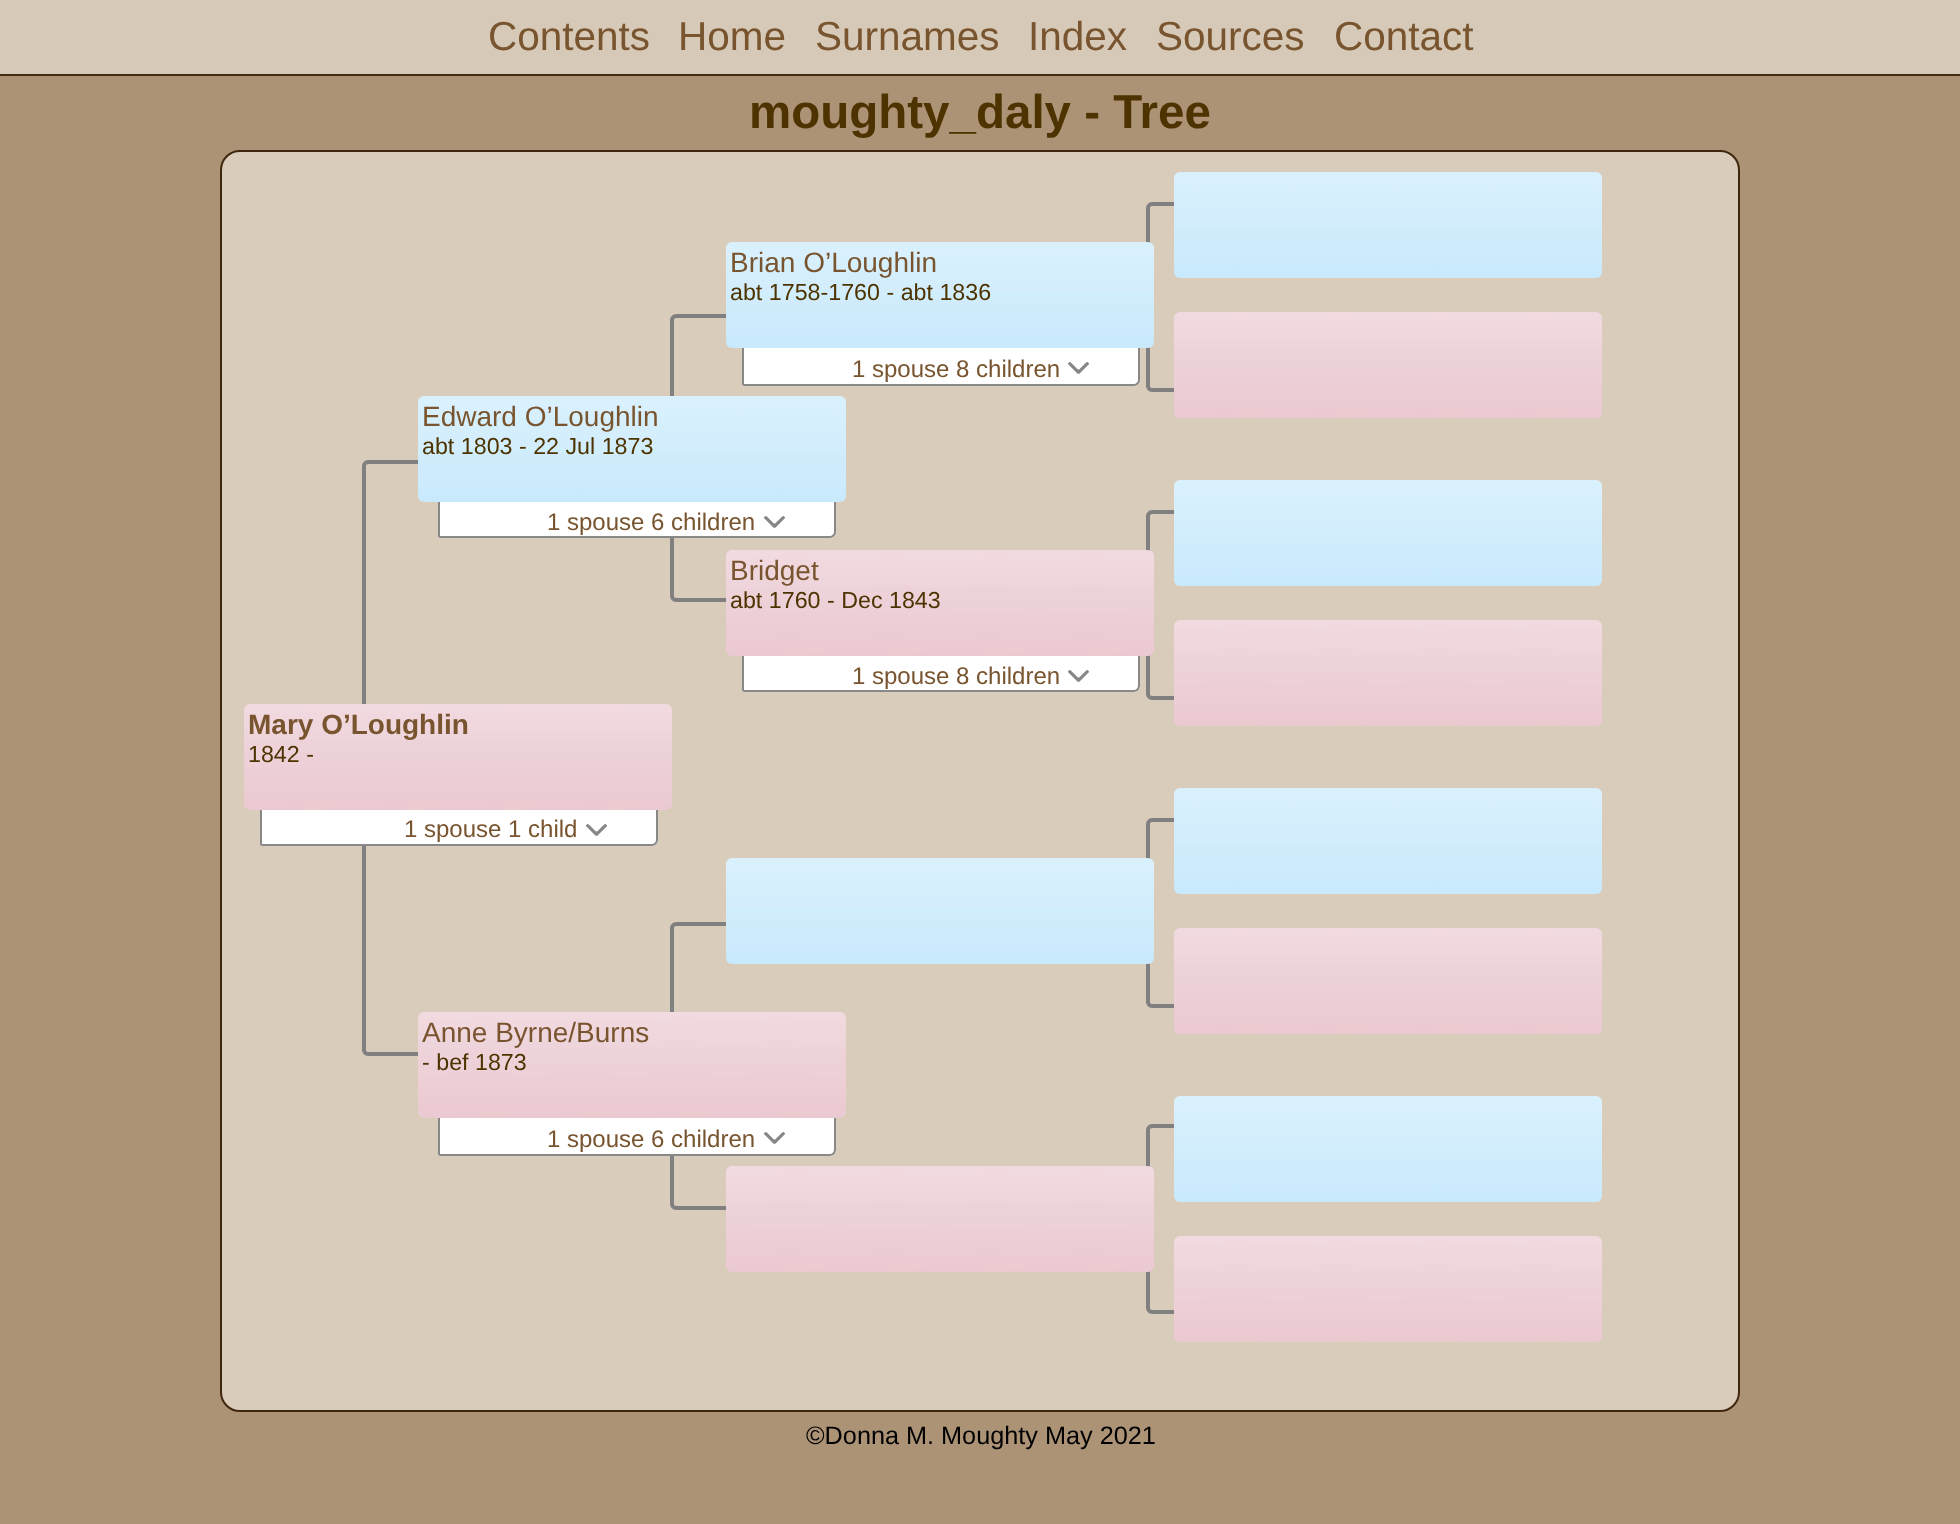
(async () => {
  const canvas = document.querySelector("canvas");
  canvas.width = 1960;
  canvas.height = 1524;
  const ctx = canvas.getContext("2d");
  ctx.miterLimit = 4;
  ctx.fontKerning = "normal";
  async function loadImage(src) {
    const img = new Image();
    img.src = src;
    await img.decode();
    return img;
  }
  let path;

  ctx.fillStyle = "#ac9376";
  ctx.fillRect(0, 0, 1960, 1524);
  ctx.fillStyle = "#d7c9b7";
  ctx.fillRect(0, 0, 1960, 74);
  ctx.fillStyle = "#442c14";
  ctx.fillRect(0, 74, 1960, 2);
  ctx.fillStyle = "#d9ccba";
  ctx.beginPath();
  ctx.roundRect(221, 151, 1518, 1260, 19);
  ctx.fill();
  ctx.strokeStyle = "#3f270f";
  ctx.lineWidth = 2;
  ctx.stroke();
  ctx.fillStyle = "#808080";
  path = new Path2D("M1152 202H1228C1231 202 1234 205 1234 208V386C1234 389 1231 392 1228 392H1152C1149 392 1146 389 1146 386V208C1146 205 1149 202 1152 202ZM1152 206H1228C1231 206 1234 207 1234 208V386C1234 387 1231 388 1228 388H1152C1151 388 1150 387 1150 386V208C1150 207 1151 206 1152 206Z");
  ctx.fill(path, "evenodd");
  ctx.drawImage(await loadImage("img/1.png"), 1174, 172, 428, 106);
  path = new Path2D("M676 314H752C755 314 758 317 758 320V596C758 599 755 602 752 602H676C673 602 670 599 670 596V320C670 317 673 314 676 314ZM676 318H752C755 318 758 319 758 320V596C758 597 755 598 752 598H676C675 598 674 597 674 596V320C674 319 675 318 676 318Z");
  ctx.fill(path, "evenodd");
  ctx.drawImage(await loadImage("img/2.png"), 726, 242, 428, 106);
  ctx.fillStyle = "#ffffff";
  ctx.beginPath();
  ctx.roundRect(742, 348, 398, 38, [0, 0, 6, 2]);
  ctx.fill();
  ctx.fillStyle = "#888888";
  path = new Path2D("M742 348H1140V380C1140 383 1137 386 1134 386H744C743 386 742 385 742 384ZM744 348H1138V380C1138 382 1136 384 1134 384H744Z");
  ctx.fill(path, "evenodd");
  ctx.drawImage(await loadImage("img/3.png"), 1068, 362, 21, 12);
  ctx.drawImage(await loadImage("img/4.png"), 1174, 312, 428, 106);
  ctx.fillStyle = "#808080";
  path = new Path2D("M368 460H458C461 460 464 463 464 466V1050C464 1053 461 1056 458 1056H368C365 1056 362 1053 362 1050V466C362 463 365 460 368 460ZM368 464H458C461 464 464 465 464 466V1050C464 1051 461 1052 458 1052H368C367 1052 366 1051 366 1050V466C366 465 367 464 368 464Z");
  ctx.fill(path, "evenodd");
  ctx.fillStyle = "#ffffff";
  ctx.beginPath();
  ctx.roundRect(438, 500, 398, 38, [0, 0, 6, 2]);
  ctx.fill();
  ctx.fillStyle = "#888888";
  path = new Path2D("M438 500H836V532C836 535 833 538 830 538H440C439 538 438 537 438 536ZM440 500H834V532C834 534 832 536 830 536H440Z");
  ctx.fill(path, "evenodd");
  ctx.drawImage(await loadImage("img/1.png"), 418, 396, 428, 106);
  ctx.fillStyle = "#808080";
  path = new Path2D("M1152 510H1228C1231 510 1234 513 1234 516V694C1234 697 1231 700 1228 700H1152C1149 700 1146 697 1146 694V516C1146 513 1149 510 1152 510ZM1152 514H1228C1231 514 1234 515 1234 516V694C1234 695 1231 696 1228 696H1152C1151 696 1150 695 1150 694V516C1150 515 1151 514 1152 514Z");
  ctx.fill(path, "evenodd");
  ctx.drawImage(await loadImage("img/1.png"), 1174, 480, 428, 106);
  ctx.drawImage(await loadImage("img/3.png"), 764, 516, 21, 12);
  ctx.fillStyle = "#ffffff";
  ctx.beginPath();
  ctx.roundRect(742, 654, 398, 38, [0, 0, 6, 2]);
  ctx.fill();
  ctx.fillStyle = "#888888";
  path = new Path2D("M742 654H1140V686C1140 689 1137 692 1134 692H744C743 692 742 691 742 690ZM744 654H1138V686C1138 688 1136 690 1134 690H744Z");
  ctx.fill(path, "evenodd");
  ctx.drawImage(await loadImage("img/5.png"), 726, 550, 428, 106);
  ctx.drawImage(await loadImage("img/3.png"), 1068, 670, 21, 12);
  ctx.drawImage(await loadImage("img/4.png"), 1174, 620, 428, 106);
  ctx.fillStyle = "#ffffff";
  ctx.beginPath();
  ctx.roundRect(260, 808, 398, 38, [0, 0, 6, 2]);
  ctx.fill();
  ctx.fillStyle = "#888888";
  path = new Path2D("M260 808H658V840C658 843 655 846 652 846H262C261 846 260 845 260 844ZM262 808H656V840C656 842 654 844 652 844H262Z");
  ctx.fill(path, "evenodd");
  ctx.drawImage(await loadImage("img/4.png"), 244, 704, 428, 106);
  ctx.fillStyle = "#808080";
  path = new Path2D("M1152 818H1228C1231 818 1234 821 1234 824V1002C1234 1005 1231 1008 1228 1008H1152C1149 1008 1146 1005 1146 1002V824C1146 821 1149 818 1152 818ZM1152 822H1228C1231 822 1234 823 1234 824V1002C1234 1003 1231 1004 1228 1004H1152C1151 1004 1150 1003 1150 1002V824C1150 823 1151 822 1152 822Z");
  ctx.fill(path, "evenodd");
  ctx.drawImage(await loadImage("img/1.png"), 1174, 788, 428, 106);
  ctx.drawImage(await loadImage("img/3.png"), 586, 824, 21, 12);
  path = new Path2D("M676 922H752C755 922 758 925 758 928V1204C758 1207 755 1210 752 1210H676C673 1210 670 1207 670 1204V928C670 925 673 922 676 922ZM676 926H752C755 926 758 927 758 928V1204C758 1205 755 1206 752 1206H676C675 1206 674 1205 674 1204V928C674 927 675 926 676 926Z");
  ctx.fill(path, "evenodd");
  ctx.drawImage(await loadImage("img/2.png"), 726, 858, 428, 106);
  ctx.drawImage(await loadImage("img/4.png"), 1174, 928, 428, 106);
  ctx.drawImage(await loadImage("img/6.png"), 418, 1012, 428, 106);
  path = new Path2D("M1152 1124H1228C1231 1124 1234 1127 1234 1130V1308C1234 1311 1231 1314 1228 1314H1152C1149 1314 1146 1311 1146 1308V1130C1146 1127 1149 1124 1152 1124ZM1152 1128H1228C1231 1128 1234 1129 1234 1130V1308C1234 1309 1231 1310 1228 1310H1152C1151 1310 1150 1309 1150 1308V1130C1150 1129 1151 1128 1152 1128Z");
  ctx.fill(path, "evenodd");
  ctx.drawImage(await loadImage("img/1.png"), 1174, 1096, 428, 106);
  ctx.fillStyle = "#ffffff";
  ctx.beginPath();
  ctx.roundRect(438, 1118, 398, 38, [0, 0, 6, 2]);
  ctx.fill();
  ctx.fillStyle = "#888888";
  path = new Path2D("M438 1118H836V1150C836 1153 833 1156 830 1156H440C439 1156 438 1155 438 1154ZM440 1118H834V1150C834 1152 832 1154 830 1154H440Z");
  ctx.fill(path, "evenodd");
  ctx.drawImage(await loadImage("img/3.png"), 764, 1132, 21, 12);
  ctx.drawImage(await loadImage("img/5.png"), 726, 1166, 428, 106);
  ctx.drawImage(await loadImage("img/4.png"), 1174, 1236, 428, 106);
  ctx.font = "40.5px Liberation Sans";
  ctx.fillStyle = "#78542f";
  for (const [text, x, y] of [
    ["Contents", 488, 50],
    ["Home", 678, 50],
    ["Surnames", 815, 50],
    ["Index", 1028, 50],
    ["Sources", 1156, 50],
    ["Contact", 1334, 50],
  ]) {
    ctx.fillText(text, x, y);
  }
  ctx.font = "bold 47.5px Liberation Sans";
  ctx.fillStyle = "#4d3300";
  ctx.fillText("moughty_daly - Tree", 749, 128);
  ctx.font = "28px Liberation Sans";
  ctx.fillStyle = "#78542f";
  ctx.fillText("Brian O’Loughlin", 730, 272);
  ctx.font = "23.25px Liberation Sans";
  ctx.fillStyle = "#4d3300";
  ctx.fillText("abt 1758-1760 - abt 1836", 730, 300);
  ctx.font = "24px Liberation Sans";
  ctx.fillStyle = "#78542f";
  ctx.fillText("1 spouse 8 children", 852, 377);
  ctx.font = "28px Liberation Sans";
  ctx.fillText("Edward O’Loughlin", 422, 426);
  ctx.font = "23.25px Liberation Sans";
  ctx.fillStyle = "#4d3300";
  ctx.fillText("abt 1803 - 22 Jul 1873", 422, 454);
  ctx.font = "24px Liberation Sans";
  ctx.fillStyle = "#78542f";
  ctx.fillText("1 spouse 6 children", 547, 530);
  ctx.font = "28px Liberation Sans";
  ctx.fillText("Bridget", 730, 580);
  ctx.font = "23.25px Liberation Sans";
  ctx.fillStyle = "#4d3300";
  ctx.fillText("abt 1760 - Dec 1843", 730, 608);
  ctx.font = "24px Liberation Sans";
  ctx.fillStyle = "#78542f";
  ctx.fillText("1 spouse 8 children", 852, 684);
  ctx.font = "bold 28px Liberation Sans";
  ctx.fillText("Mary O’Loughlin", 248, 734);
  ctx.font = "23.25px Liberation Sans";
  ctx.fillStyle = "#4d3300";
  ctx.fillText("1842 -", 248, 762);
  ctx.font = "24px Liberation Sans";
  ctx.fillStyle = "#78542f";
  ctx.fillText("1 spouse 1 child", 404, 837);
  ctx.font = "28px Liberation Sans";
  ctx.fillText("Anne Byrne/Burns", 422, 1042);
  ctx.font = "23.25px Liberation Sans";
  ctx.fillStyle = "#4d3300";
  ctx.fillText("- bef 1873", 422, 1070);
  ctx.font = "24px Liberation Sans";
  ctx.fillStyle = "#78542f";
  ctx.fillText("1 spouse 6 children", 547, 1147);
  ctx.font = "25.25px Liberation Sans";
  ctx.fillStyle = "#000000";
  ctx.fillText("©Donna M. Moughty May 2021", 806, 1444);
})();
